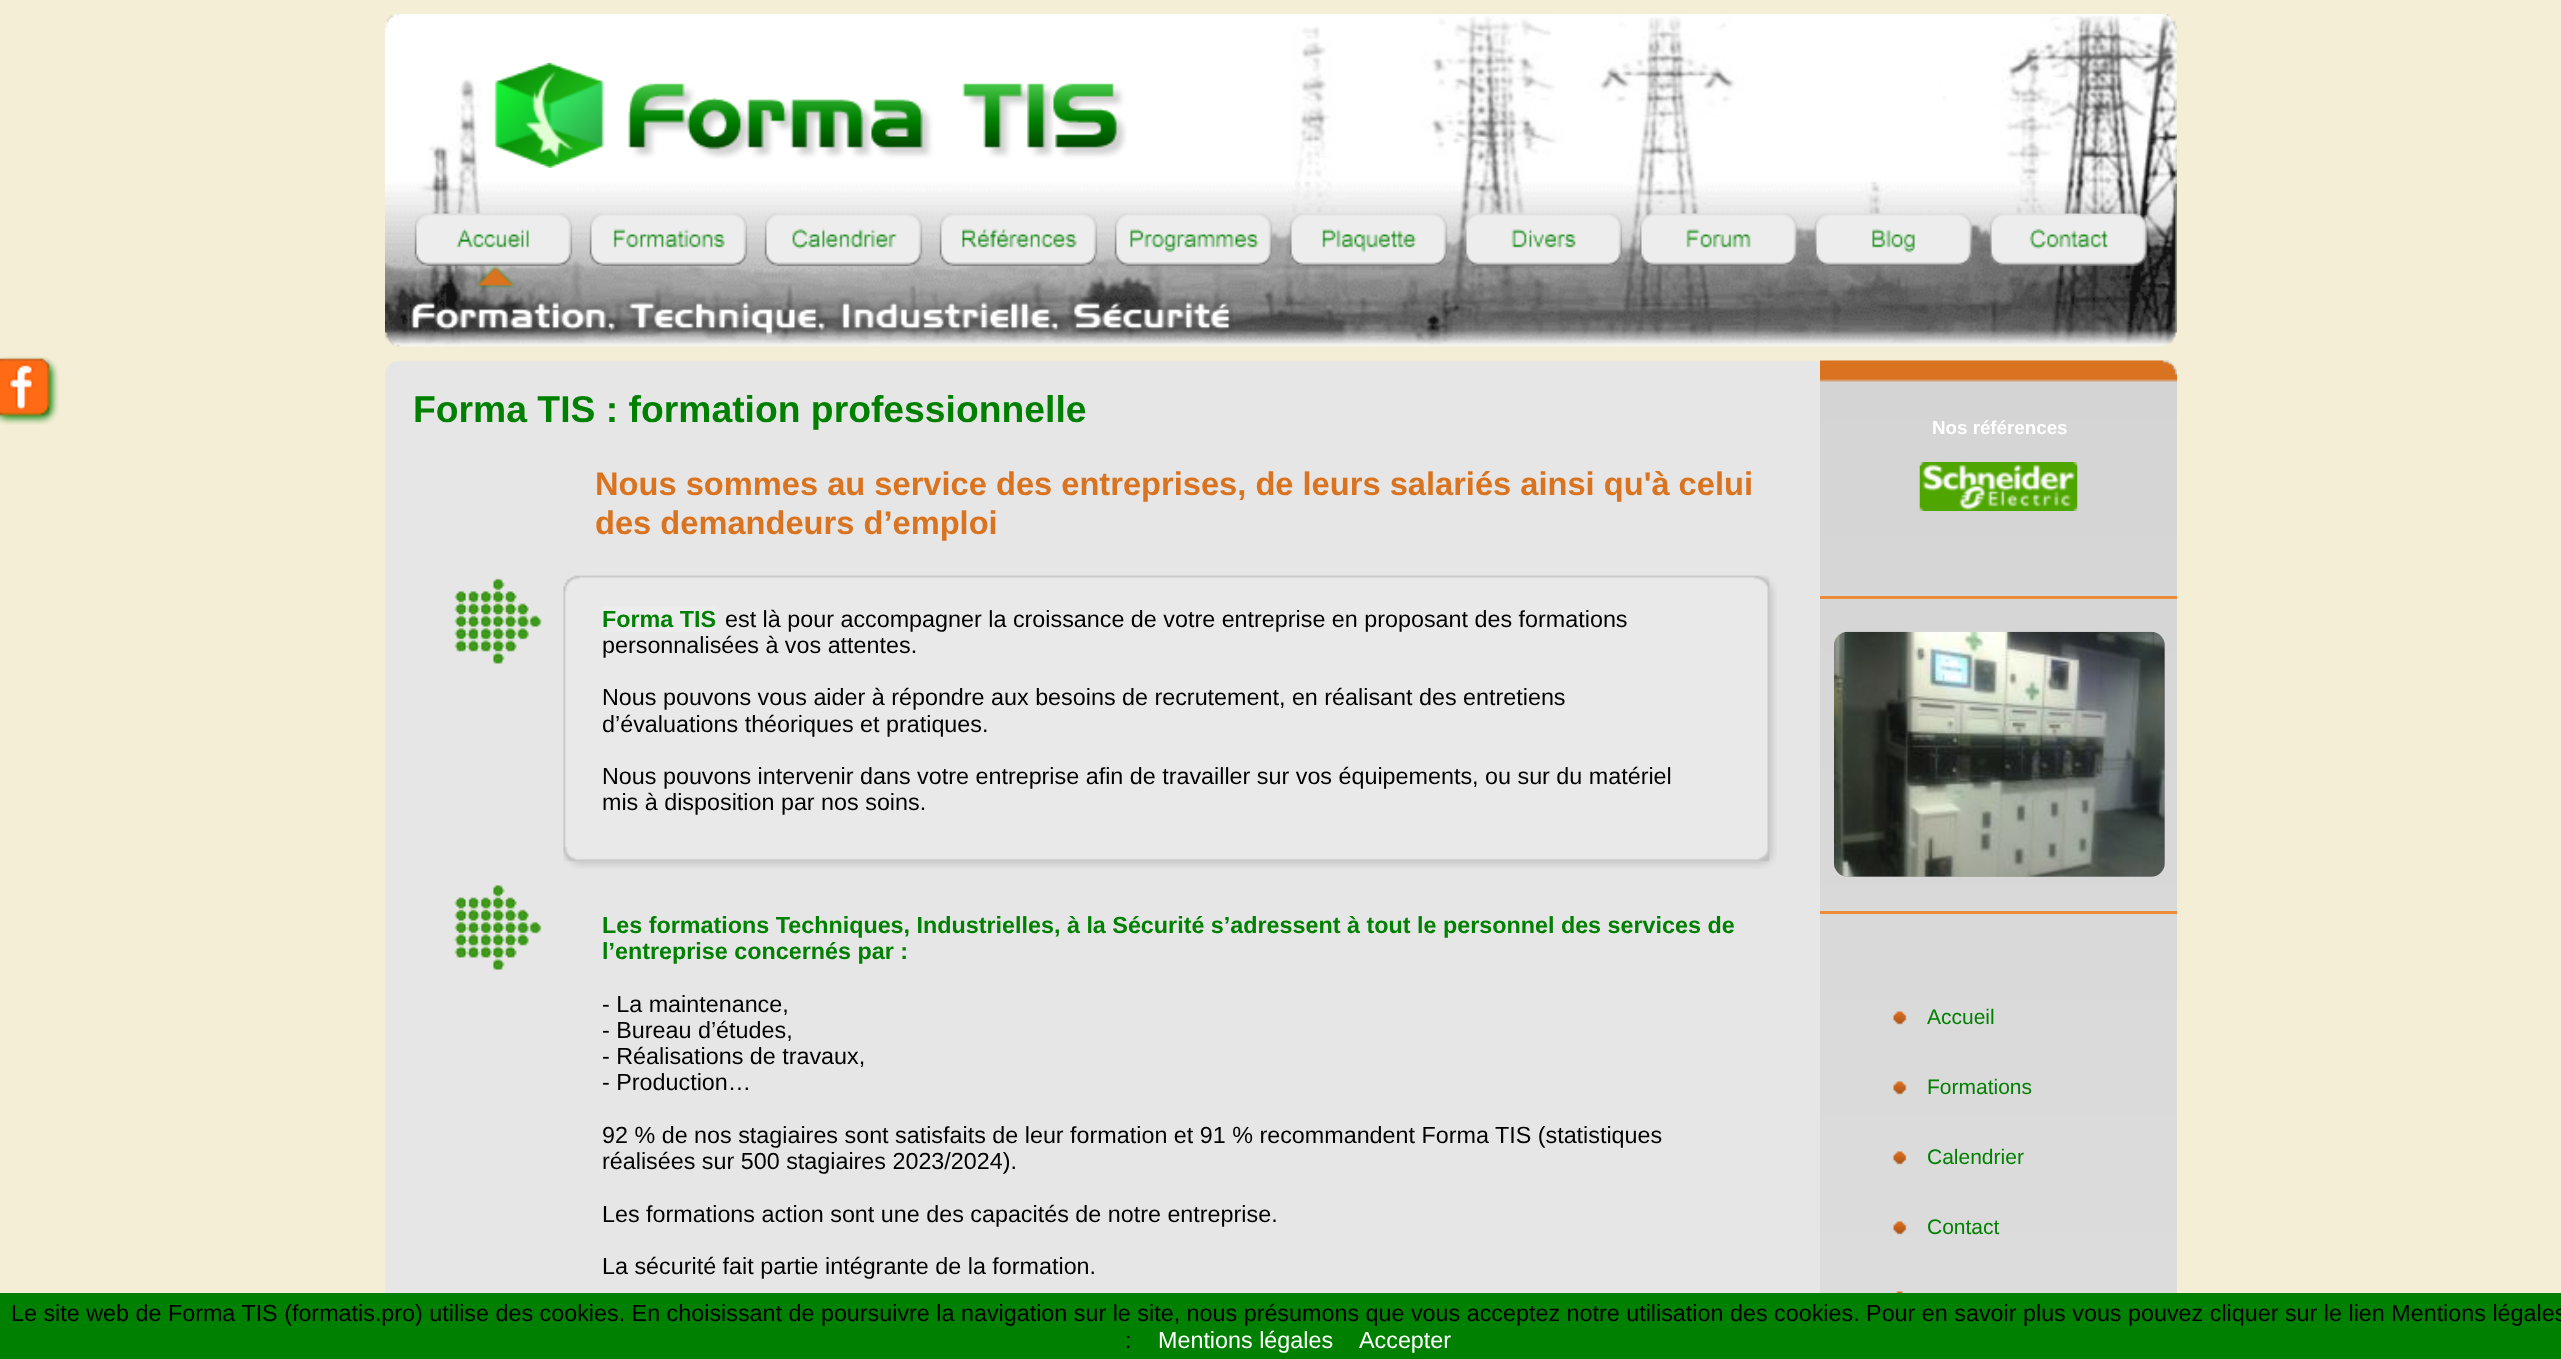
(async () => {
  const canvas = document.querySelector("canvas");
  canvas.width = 2561;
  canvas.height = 1359;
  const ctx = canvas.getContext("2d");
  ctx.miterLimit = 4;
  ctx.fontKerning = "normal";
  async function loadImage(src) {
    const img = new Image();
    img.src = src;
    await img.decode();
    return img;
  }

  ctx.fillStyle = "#f4eed6";
  ctx.fillRect(0, 0, 2561, 1359);
  ctx.drawImage(await loadImage("img/1.png"), 385, 14, 1792, 333);
  ctx.drawImage(await loadImage("img/2.png"), 494, 63, 111, 105);
  ctx.drawImage(await loadImage("img/3.png"), 628, 83, 499, 76);
  ctx.drawImage(await loadImage("img/4.png"), 414, 213, 159, 53);
  ctx.drawImage(await loadImage("img/5.png"), 589, 213, 159, 53);
  ctx.drawImage(await loadImage("img/6.png"), 764, 213, 159, 53);
  ctx.drawImage(await loadImage("img/7.png"), 939, 213, 159, 53);
  ctx.drawImage(await loadImage("img/8.png"), 1114, 213, 159, 53);
  ctx.drawImage(await loadImage("img/9.png"), 1289, 213, 159, 53);
  ctx.drawImage(await loadImage("img/10.png"), 1464, 213, 159, 53);
  ctx.drawImage(await loadImage("img/11.png"), 1639, 213, 159, 53);
  ctx.drawImage(await loadImage("img/12.png"), 1814, 213, 159, 53);
  ctx.drawImage(await loadImage("img/13.png"), 1989, 213, 159, 53);
  ctx.drawImage(await loadImage("img/14.png"), 476, 265, 39, 24);
  ctx.drawImage(await loadImage("img/15.png"), 406, 297, 829, 41);
  ctx.drawImage(await loadImage("img/16.png"), 0, 356, 59, 69);
  ctx.fillStyle = "#e6e6e6";
  ctx.beginPath();
  ctx.roundRect(385, 361, 1792, 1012, 14);
  ctx.fill();
  ctx.drawImage(await loadImage("img/17.png"), 1820, 360, 357, 933);
  ctx.drawImage(await loadImage("img/18.png"), 1820, 360, 357, 22);
  ctx.drawImage(await loadImage("img/19.png"), 1919, 462, 159, 49);
  ctx.drawImage(await loadImage("img/20.png"), 454, 578, 88, 86);
  ctx.drawImage(await loadImage("img/21.png"), 563, 575, 1214, 294);
  ctx.fillStyle = "#ec8c39";
  ctx.fillRect(1820, 596, 357, 3);
  ctx.fillStyle = "#ececec";
  ctx.fillRect(602, 606, 114, 26);
  ctx.fillStyle = "#adadad";
  ctx.beginPath();
  ctx.roundRect(1834, 632, 331, 245, 14);
  ctx.fill();
  ctx.drawImage(await loadImage("img/22.png"), 1834, 631, 331, 246);
  ctx.drawImage(await loadImage("img/23.png"), 454, 885, 88, 85);
  ctx.fillStyle = "#ec8c39";
  ctx.fillRect(1820, 911, 357, 3);
  ctx.drawImage(await loadImage("img/24.png"), 1893, 1011, 14, 14);
  ctx.drawImage(await loadImage("img/24.png"), 1893, 1081, 14, 14);
  ctx.drawImage(await loadImage("img/25.png"), 1893, 1151, 14, 14);
  ctx.drawImage(await loadImage("img/26.png"), 1893, 1221, 14, 14);
  ctx.drawImage(await loadImage("img/27.png"), 1895, 1291, 9, 2);
  ctx.fillStyle = "#008000";
  ctx.fillRect(0, 1293, 2561, 66);
  ctx.font = "bold 37.3px Liberation Sans";
  ctx.fillText("Forma TIS : formation professionnelle", 413, 422);
  ctx.font = "bold 18.75px Liberation Sans";
  ctx.fillStyle = "#ffffff";
  ctx.fillText("Nos références", 1932, 434);
  ctx.font = "bold 32.65px Liberation Sans";
  ctx.fillStyle = "#da7320";
  ctx.fillText("Nous sommes au service des entreprises, de leurs salariés ainsi qu'à celui", 595, 495);
  ctx.fillText("des demandeurs d’emploi", 595, 534);
  ctx.font = "23.33px Liberation Sans";
  ctx.fillStyle = "#000000";
  for (const [text, x, y] of [
    ["est là pour accompagner la croissance de votre entreprise en proposant des formations", 725, 627],
    ["personnalisées à vos attentes.", 602, 653],
    ["Nous pouvons vous aider à répondre aux besoins de recrutement, en réalisant des entretiens", 602, 705],
    ["d’évaluations théoriques et pratiques.", 602, 732],
    ["Nous pouvons intervenir dans votre entreprise afin de travailler sur vos équipements, ou sur du matériel", 602, 784],
    ["mis à disposition par nos soins.", 602, 810],
  ]) {
    ctx.fillText(text, x, y);
  }
  ctx.font = "bold 23.33px Liberation Sans";
  ctx.fillStyle = "#008000";
  for (const [text, x, y] of [
    ["Forma TIS", 602, 627],
    ["Les formations Techniques, Industrielles, à la Sécurité s’adressent à tout le personnel des services de", 602, 933],
    ["l’entreprise concernés par :", 602, 959],
  ]) {
    ctx.fillText(text, x, y);
  }
  ctx.font = "23.33px Liberation Sans";
  ctx.fillStyle = "#000000";
  for (const [text, x, y] of [
    ["- La maintenance,", 602, 1012],
    ["- Bureau d’études,", 602, 1038],
    ["- Réalisations de travaux,", 602, 1064],
    ["- Production…", 602, 1090],
    ["92 % de nos stagiaires sont satisfaits de leur formation et 91 % recommandent Forma TIS (statistiques", 602, 1143],
    ["réalisées sur 500 stagiaires 2023/2024).", 602, 1169],
    ["Les formations action sont une des capacités de notre entreprise.", 602, 1222],
    ["La sécurité fait partie intégrante de la formation.", 602, 1274],
  ]) {
    ctx.fillText(text, x, y);
  }
  ctx.font = "21px Liberation Sans";
  ctx.fillStyle = "#008000";
  for (const [text, x, y] of [
    ["Accueil", 1927, 1024],
    ["Formations", 1927, 1094],
    ["Calendrier", 1927, 1164],
    ["Contact", 1927, 1234],
  ]) {
    ctx.fillText(text, x, y);
  }
  ctx.font = "23.33px Liberation Sans";
  ctx.fillStyle = "#000000";
  ctx.fillText("Le site web de Forma TIS (formatis.pro) utilise des cookies. En choisissant de poursuivre la navigation sur le site, nous présumons que vous acceptez notre utilisation des cookies. Pour en savoir plus vous pouvez cliquer sur le lien Mentions légales", 11, 1321);
  ctx.fillText(":", 1125, 1348);
  ctx.fillStyle = "#ffffff";
  ctx.fillText("Mentions légales", 1158, 1348);
  ctx.fillText("Accepter", 1359, 1348);
})();
